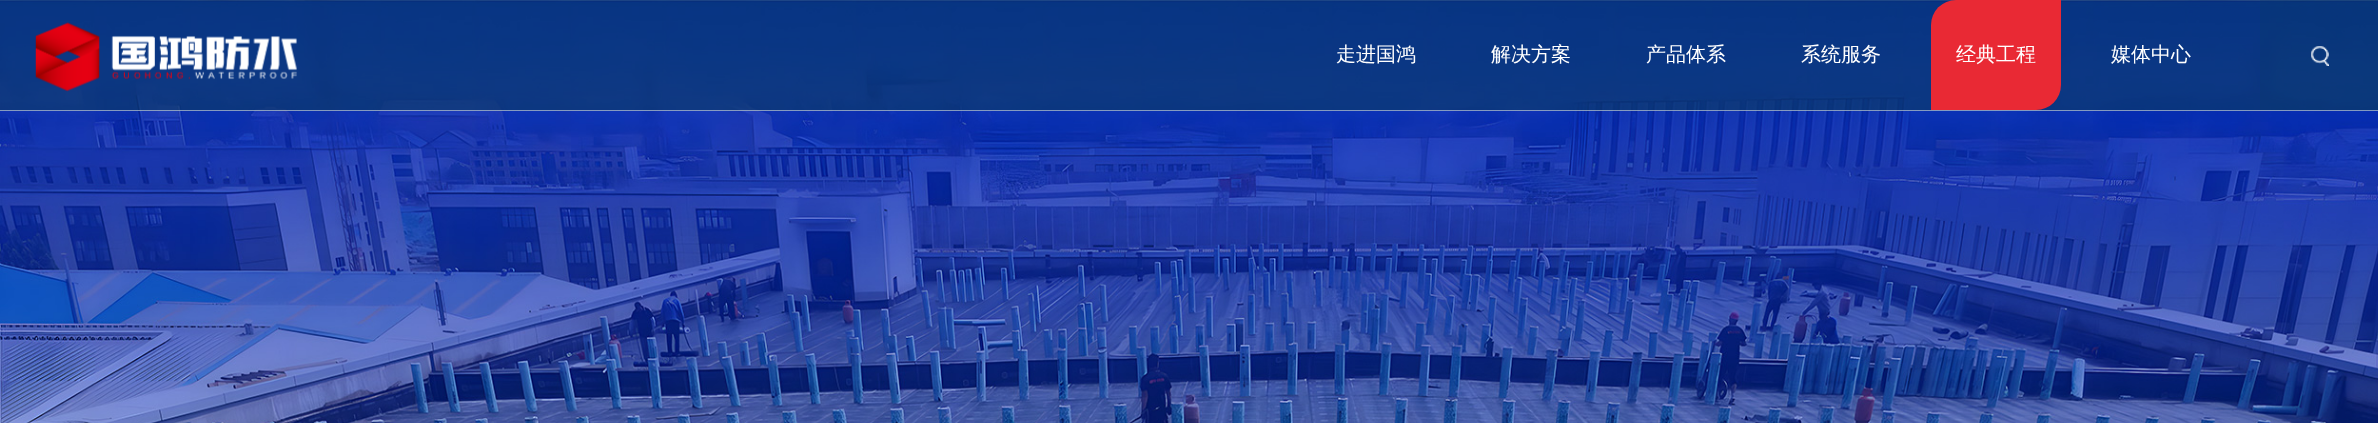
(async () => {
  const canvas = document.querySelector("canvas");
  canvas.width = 2378;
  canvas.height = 423;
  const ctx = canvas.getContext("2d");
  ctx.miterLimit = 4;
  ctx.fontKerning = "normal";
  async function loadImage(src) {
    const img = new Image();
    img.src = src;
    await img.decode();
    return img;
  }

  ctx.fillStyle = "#ffffff";
  ctx.fillRect(0, 0, 2378, 423);
  ctx.drawImage(await loadImage("img/1.png"), 0, 0, 2378, 423);
  ctx.fillStyle = "rgba(12, 58, 93, 0.6)";
  ctx.fillRect(0, 0, 2378, 111);
  ctx.fillStyle = "rgba(255, 255, 255, 0.5)";
  ctx.fillRect(0, 110, 2378, 1);
  ctx.drawImage(await loadImage("img/2.png"), 35, 22, 262, 70);
  ctx.fillStyle = "#e92934";
  ctx.beginPath();
  ctx.roundRect(1931, 0, 130, 110, [25, 0, 25, 0]);
  ctx.fill();
  ctx.fillStyle = "rgba(12, 58, 93, 0.2)";
  ctx.fillRect(2260, 0, 118, 110);
  ctx.drawImage(await loadImage("img/3.png"), 2311, 46, 18, 20);
  ctx.font = "500 20px WenQuanYi Zen Hei";
  ctx.fillStyle = "#ffffff";
  for (const [text, x, y] of [
    ["走进国鸿", 1336, 61],
    ["解决方案", 1491, 61],
    ["产品体系", 1646, 61],
    ["系统服务", 1801, 61],
    ["经典工程", 1956, 61],
    ["媒体中心", 2111, 61],
  ]) {
    ctx.fillText(text, x, y);
  }
})();
